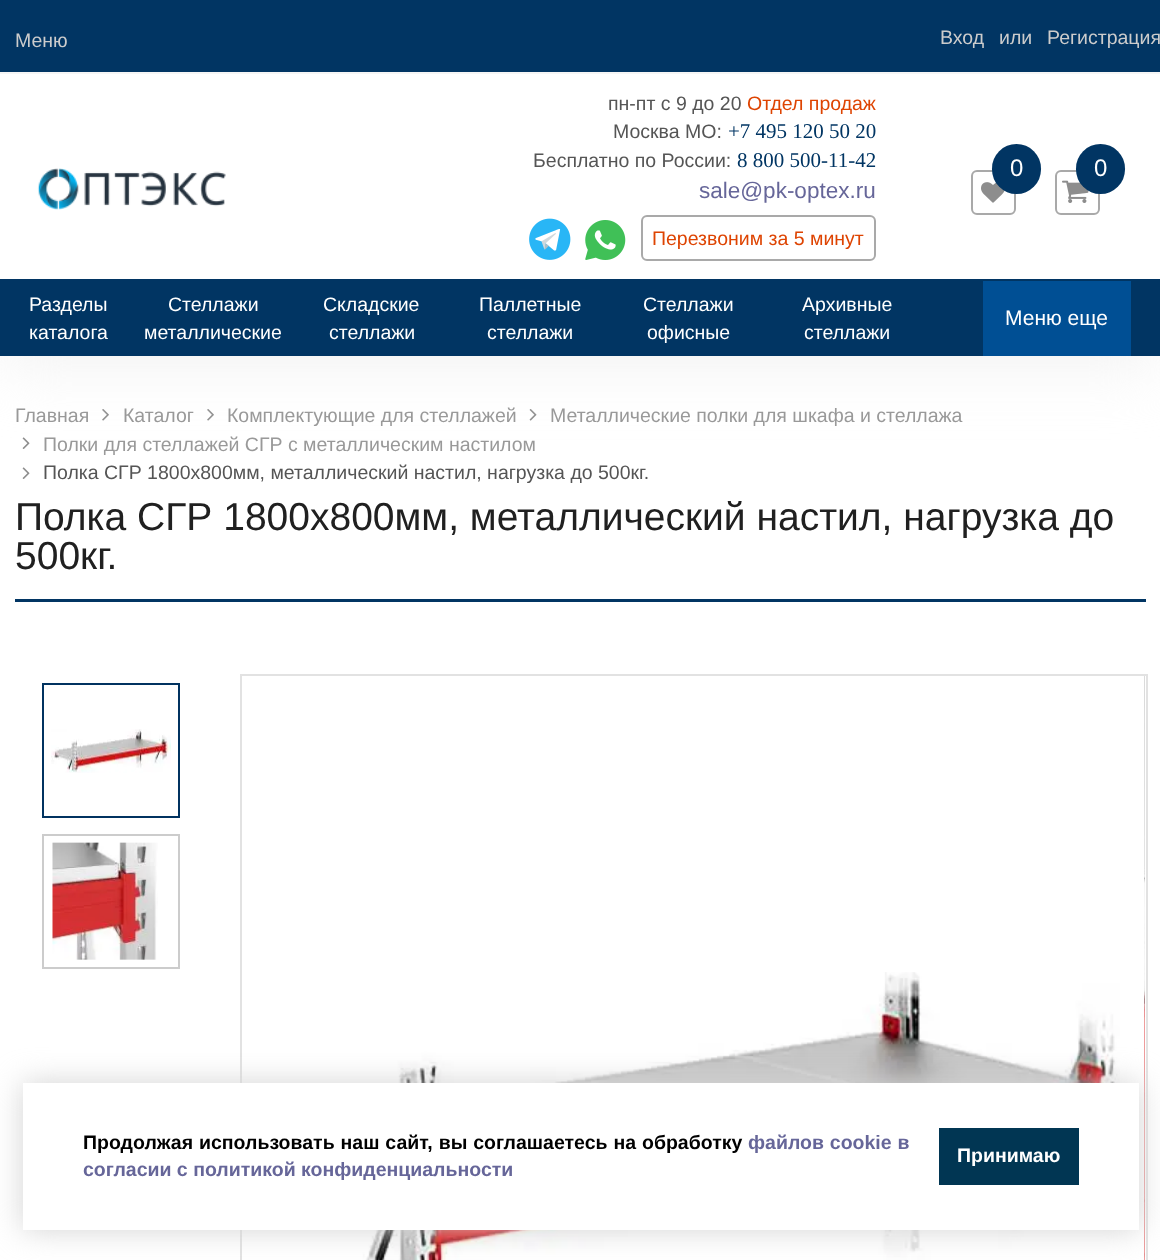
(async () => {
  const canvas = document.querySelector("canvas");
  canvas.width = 1160;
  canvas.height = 1260;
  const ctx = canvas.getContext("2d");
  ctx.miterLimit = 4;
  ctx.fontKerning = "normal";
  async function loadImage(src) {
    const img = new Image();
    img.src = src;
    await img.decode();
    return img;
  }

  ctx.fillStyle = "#ffffff";
  ctx.fillRect(0, 0, 1160, 1260);
  ctx.drawImage(await loadImage("img/6.png"), 102, 409, 7, 12);
  ctx.drawImage(await loadImage("img/6.png"), 207, 409, 7, 12);
  ctx.drawImage(await loadImage("img/7.png"), 529, 409, 8, 12);
  ctx.drawImage(await loadImage("img/8.png"), 22, 437, 8, 12);
  ctx.fillStyle = "#f3f3f3";
  ctx.filter = "blur(30px)";
  ctx.beginPath();
  ctx.rect(0, 86, 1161, 282);
  ctx.fill();
  ctx.filter = "none";
  for (const [x, y, w, h, color] of [
    [0, 0, 1160, 72, "#013563"],
    [0, 72, 1160, 2, "#f5f5f5"],
    [0, 74, 1160, 205, "#ffffff"],
  ]) {
    ctx.fillStyle = color;
    ctx.fillRect(x, y, w, h);
  }
  ctx.drawImage(await loadImage("img/1.png"), 37, 168, 189, 42);
  ctx.drawImage(await loadImage("img/2.png"), 529, 218, 42, 42);
  ctx.drawImage(await loadImage("img/3.png"), 585, 220, 41, 40);
  ctx.beginPath();
  ctx.roundRect(642, 216, 233, 44, 5);
  ctx.strokeStyle = "#a9a9a9";
  ctx.lineWidth = 2;
  ctx.stroke();
  ctx.beginPath();
  ctx.roundRect(972, 171, 43, 43, 5);
  ctx.stroke();
  ctx.drawImage(await loadImage("img/4.png"), 981, 182, 24, 21);
  ctx.fillStyle = "#013563";
  ctx.beginPath();
  ctx.roundRect(992, 144, 49, 50, 24.5);
  ctx.fill();
  ctx.beginPath();
  ctx.roundRect(1056, 171, 43, 43, 5);
  ctx.stroke();
  ctx.drawImage(await loadImage("img/5.png"), 1062, 180, 27, 23);
  ctx.beginPath();
  ctx.roundRect(1076, 144, 49, 50, 24.5);
  ctx.fill();
  ctx.fillRect(0, 279, 1160, 77);
  ctx.fillStyle = "#004f94";
  ctx.fillRect(983, 281, 148, 75);
  ctx.drawImage(await loadImage("img/8.png"), 22, 467, 8, 12);
  ctx.fillStyle = "#013563";
  ctx.fillRect(15, 599, 1131, 3);
  ctx.strokeStyle = "#013360";
  ctx.strokeRect(43, 684, 136, 133);
  ctx.drawImage(await loadImage("img/9.png"), 51, 729, 120, 44);
  ctx.strokeStyle = "#cccccc";
  ctx.strokeRect(43, 835, 136, 133);
  ctx.drawImage(await loadImage("img/10.png"), 52, 842, 106, 118);
  ctx.strokeStyle = "#e2e2e2";
  ctx.strokeRect(241, 675, 906, 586);
  ctx.drawImage(await loadImage("img/11.png"), 261, 972, 859, 288);
  ctx.drawImage(await loadImage("img/12.png"), 1144, 676, 1, 584);
  ctx.fillStyle = "#d3d3d3";
  ctx.filter = "blur(15px)";
  ctx.beginPath();
  ctx.rect(23, 1083, 1116, 147);
  ctx.fill();
  ctx.filter = "none";
  ctx.fillStyle = "#ffffff";
  ctx.fillRect(23, 1083, 1116, 147);
  ctx.fillStyle = "#013653";
  ctx.fillRect(939, 1128, 140, 57);
  ctx.font = "19.5px Liberation Sans";
  ctx.fillStyle = "#cccccc";
  for (const [text, x, y] of [
    ["Меню", 15, 47],
    ["Вход", 940, 44],
    ["или", 999, 44],
    ["Регистрация", 1047, 44],
  ]) {
    ctx.fillText(text, x, y);
  }
  ctx.fillStyle = "#555555";
  ctx.fillText("пн-пт с 9 до 20", 608, 110);
  ctx.fillStyle = "#de4402";
  ctx.fillText("Отдел продаж", 747, 110);
  ctx.fillStyle = "#555555";
  ctx.fillText("Москва МО:", 613, 138);
  ctx.font = "21px Liberation Serif";
  ctx.fillStyle = "#013563";
  ctx.fillText("+7 495 120 50 20", 728, 138);
  ctx.font = "19.5px Liberation Sans";
  ctx.fillStyle = "#555555";
  ctx.fillText("Бесплатно по России:", 533, 167);
  ctx.font = "21px Liberation Serif";
  ctx.fillStyle = "#013563";
  ctx.fillText("8 800 500-11-42", 737, 167);
  ctx.font = "22.5px Liberation Sans";
  ctx.fillStyle = "#666699";
  ctx.fillText("sale@pk-optex.ru", 699, 198);
  ctx.font = "19.5px Liberation Sans";
  ctx.fillStyle = "#de4402";
  ctx.fillText("Перезвоним за 5 минут", 652, 245);
  ctx.font = "24px Liberation Sans";
  ctx.fillStyle = "#ffffff";
  ctx.fillText("0", 1010, 176);
  ctx.fillText("0", 1094, 176);
  ctx.font = "19.5px Liberation Sans";
  for (const [text, x, y] of [
    ["Разделы", 29, 311],
    ["каталога", 29, 339],
    ["Стеллажи", 168, 311],
    ["металлические", 144, 339],
    ["Складские", 323, 311],
    ["стеллажи", 329, 339],
    ["Паллетные", 479, 311],
    ["стеллажи", 487, 339],
    ["Стеллажи", 643, 311],
    ["офисные", 647, 339],
    ["Архивные", 802, 311],
    ["стеллажи", 804, 339],
  ]) {
    ctx.fillText(text, x, y);
  }
  ctx.font = "21px Liberation Sans";
  ctx.fillText("Меню еще", 1005, 325);
  ctx.font = "19.5px Liberation Sans";
  ctx.fillStyle = "#999999";
  for (const [text, x, y] of [
    ["Главная", 15, 422],
    ["Каталог", 123, 422],
    ["Комплектующие для стеллажей", 227, 422],
    ["Металлические полки для шкафа и стеллажа", 550, 422],
    ["Полки для стеллажей СГР с металлическим настилом", 43, 451],
  ]) {
    ctx.fillText(text, x, y);
  }
  ctx.fillStyle = "#555555";
  ctx.fillText("Полка СГР 1800х800мм, металлический настил, нагрузка до 500кг.", 43, 479);
  ctx.font = "39px Liberation Sans";
  ctx.fillStyle = "#202020";
  ctx.fillText("Полка СГР 1800х800мм, металлический настил, нагрузка до", 15, 530);
  ctx.fillText("500кг.", 15, 569);
  ctx.wordSpacing = "0.5px";
  ctx.font = "bold 19.5px Liberation Sans";
  ctx.fillStyle = "#000000";
  ctx.fillText("Продолжая использовать наш сайт, вы соглашаетесь на обработку", 83, 1149);
  ctx.fillStyle = "#666699";
  ctx.fillText("файлов cookie в", 748, 1149);
  ctx.wordSpacing = "0px";
  ctx.fillText("согласии с политикой конфиденциальности", 83, 1176);
  ctx.fillStyle = "#ffffff";
  ctx.fillText("Принимаю", 957, 1162);
})();
